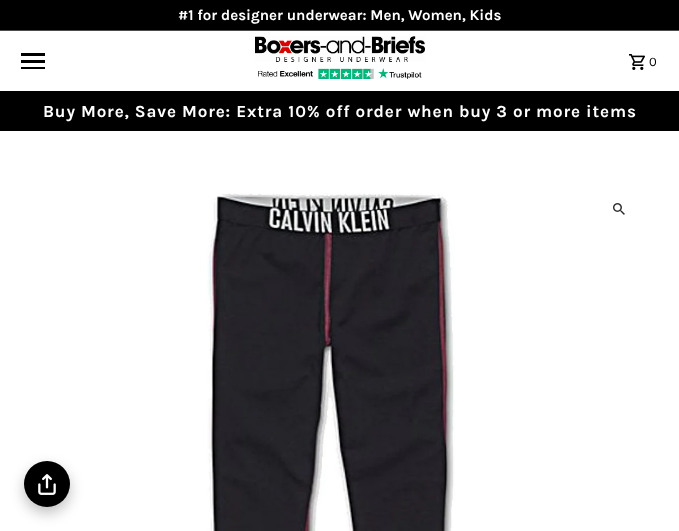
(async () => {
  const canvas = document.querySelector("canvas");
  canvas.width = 679;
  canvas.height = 531;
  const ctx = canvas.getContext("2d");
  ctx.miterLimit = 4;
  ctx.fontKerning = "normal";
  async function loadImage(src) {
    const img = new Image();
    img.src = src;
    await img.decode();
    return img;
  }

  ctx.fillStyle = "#ffffff";
  ctx.fillRect(0, 0, 679, 531);
  for (const [x, y, w, h, color] of [
    [0, 30, 679, 1, "#4d4d4d"],
    [0, 0, 679, 30, "#000000"],
    [21, 67, 24, 2, "#000000"],
    [21, 60, 24, 3, "#000000"],
    [21, 53, 24, 3, "#000000"],
  ]) {
    ctx.fillStyle = color;
    ctx.fillRect(x, y, w, h);
  }
  ctx.drawImage(await loadImage("img/1.png"), 255, 36, 170, 43);
  ctx.drawImage(await loadImage("img/2.png"), 629, 54, 16, 16);
  ctx.fillRect(0, 91, 679, 40);
  ctx.drawImage(await loadImage("img/3.png"), 207, 193, 248, 338);
  ctx.drawImage(await loadImage("img/4.png"), 613, 203, 12, 12);
  ctx.fillStyle = "rgba(0, 0, 0, 0.25)";
  ctx.filter = "blur(7px)";
  ctx.beginPath();
  ctx.roundRect(24, 467, 46, 46, 23);
  ctx.fill();
  ctx.filter = "none";
  ctx.fillStyle = "#000000";
  ctx.beginPath();
  ctx.arc(47, 484, 23, 0, Math.PI * 2);
  ctx.fill();
  ctx.drawImage(await loadImage("img/5.png"), 38, 474, 18, 21);
  ctx.font = "bold 15px Karla";
  ctx.fillStyle = "#ffffff";
  ctx.fillText("#1 for designer underwear: Men, Women, Kids", 178, 20);
  ctx.letterSpacing = "1px";
  ctx.font = "13px Karla";
  ctx.fillStyle = "#000000";
  ctx.fillText("0", 649, 66);
  ctx.letterSpacing = "0.85px";
  ctx.font = "bold 17px Karla";
  ctx.fillStyle = "#ffffff";
  ctx.fillText("Buy More, Save More: Extra 10% off order when buy 3 or more items", 43, 117);
})();
